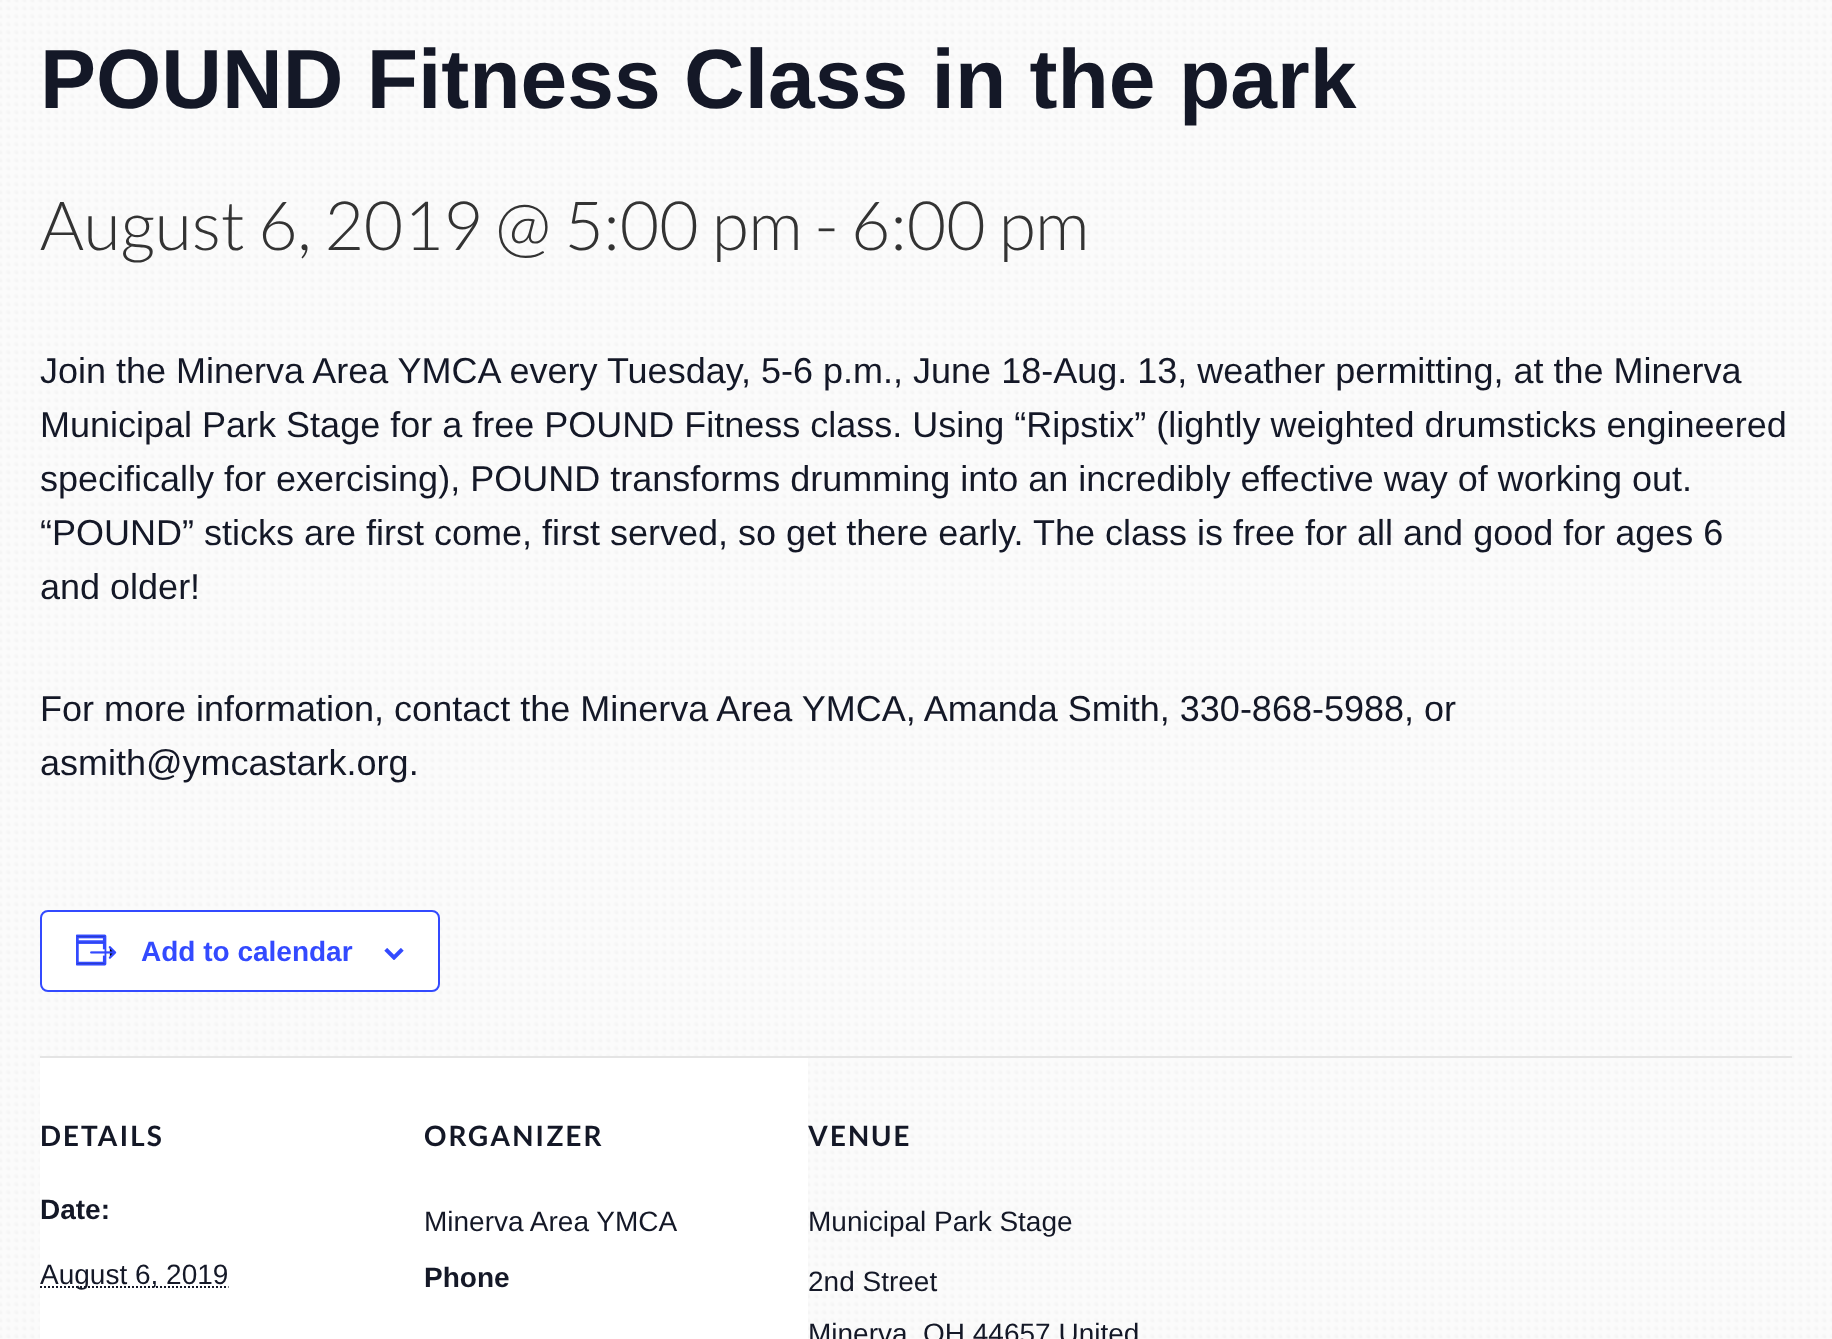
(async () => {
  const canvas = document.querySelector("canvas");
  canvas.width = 1832;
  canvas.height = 1339;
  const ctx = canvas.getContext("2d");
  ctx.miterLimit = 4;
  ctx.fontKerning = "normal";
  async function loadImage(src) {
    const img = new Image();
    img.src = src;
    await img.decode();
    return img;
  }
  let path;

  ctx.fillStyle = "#ffffff";
  ctx.fillRect(0, 0, 1832, 1339);
  ctx.drawImage(await loadImage("img/1.png"), 0, 0, 1832, 1339);
  ctx.beginPath();
  ctx.roundRect(41, 911, 398, 80, 7);
  ctx.fill();
  ctx.strokeStyle = "#334aff";
  ctx.lineWidth = 2;
  ctx.stroke();
  ctx.drawImage(await loadImage("img/2.png"), 76, 934, 41, 32);
  ctx.drawImage(await loadImage("img/3.png"), 384, 948, 20, 12);
  ctx.fillRect(40, 1058, 768, 281);
  ctx.fillStyle = "#e4e4e4";
  ctx.fillRect(40, 1056, 1752, 2);
  path = new Path2D("M40 1287H228.5");
  ctx.strokeStyle = "#141827";
  ctx.setLineDash([2, 2]);
  ctx.stroke(path);
  ctx.font = "bold 84px Liberation Sans";
  ctx.fillStyle = "#141827";
  ctx.fillText("POUND Fitness Class in the park", 40, 108);
  ctx.font = "300 68px Lato";
  ctx.fillStyle = "#333333";
  ctx.fillText("August 6, 2019 @ 5:00 pm - 6:00 pm", 40, 250);
  ctx.font = "36px Liberation Sans";
  ctx.fillStyle = "#141827";
  for (const [text, x, y] of [
    ["Join the Minerva Area YMCA every Tuesday, 5-6 p.m., June 18-Aug. 13, weather permitting, at the Minerva", 40, 383],
    ["Municipal Park Stage for a free POUND Fitness class. Using “Ripstix” (lightly weighted drumsticks engineered", 40, 437],
    ["specifically for exercising), POUND transforms drumming into an incredibly effective way of working out.", 40, 491],
    ["“POUND” sticks are first come, first served, so get there early. The class is free for all and good for ages 6", 40, 545],
    ["and older!", 40, 599],
    ["For more information, contact the Minerva Area YMCA, Amanda Smith, 330-868-5988, or", 40, 721],
    ["asmith@ymcastark.org.", 40, 775],
  ]) {
    ctx.fillText(text, x, y);
  }
  ctx.font = "bold 28px Liberation Sans";
  ctx.fillStyle = "#334aff";
  ctx.fillText("Add to calendar", 141, 961);
  ctx.letterSpacing = "2px";
  ctx.font = "bold 28px Lato";
  ctx.fillStyle = "#141827";
  ctx.fillText("DETAILS", 40, 1146);
  ctx.letterSpacing = "0px";
  ctx.font = "bold 28px Liberation Sans";
  ctx.fillText("Date:", 40, 1219);
  ctx.font = "28px Liberation Sans";
  ctx.fillText("August 6, 2019", 40, 1284);
  ctx.letterSpacing = "2px";
  ctx.font = "bold 28px Lato";
  ctx.fillText("ORGANIZER", 424, 1146);
  ctx.letterSpacing = "0px";
  ctx.font = "28px Liberation Sans";
  ctx.fillText("Minerva Area YMCA", 424, 1231);
  ctx.font = "bold 28px Liberation Sans";
  ctx.fillText("Phone", 424, 1287);
  ctx.letterSpacing = "2px";
  ctx.font = "bold 28px Lato";
  ctx.fillText("VENUE", 808, 1146);
  ctx.letterSpacing = "0px";
  ctx.font = "28px Liberation Sans";
  for (const [text, x, y] of [
    ["Municipal Park Stage", 808, 1231],
    ["2nd Street", 808, 1291],
    ["Minerva", 808, 1343],
    ["OH 44657 United", 923, 1343],
  ]) {
    ctx.fillText(text, x, y);
  }
})();
